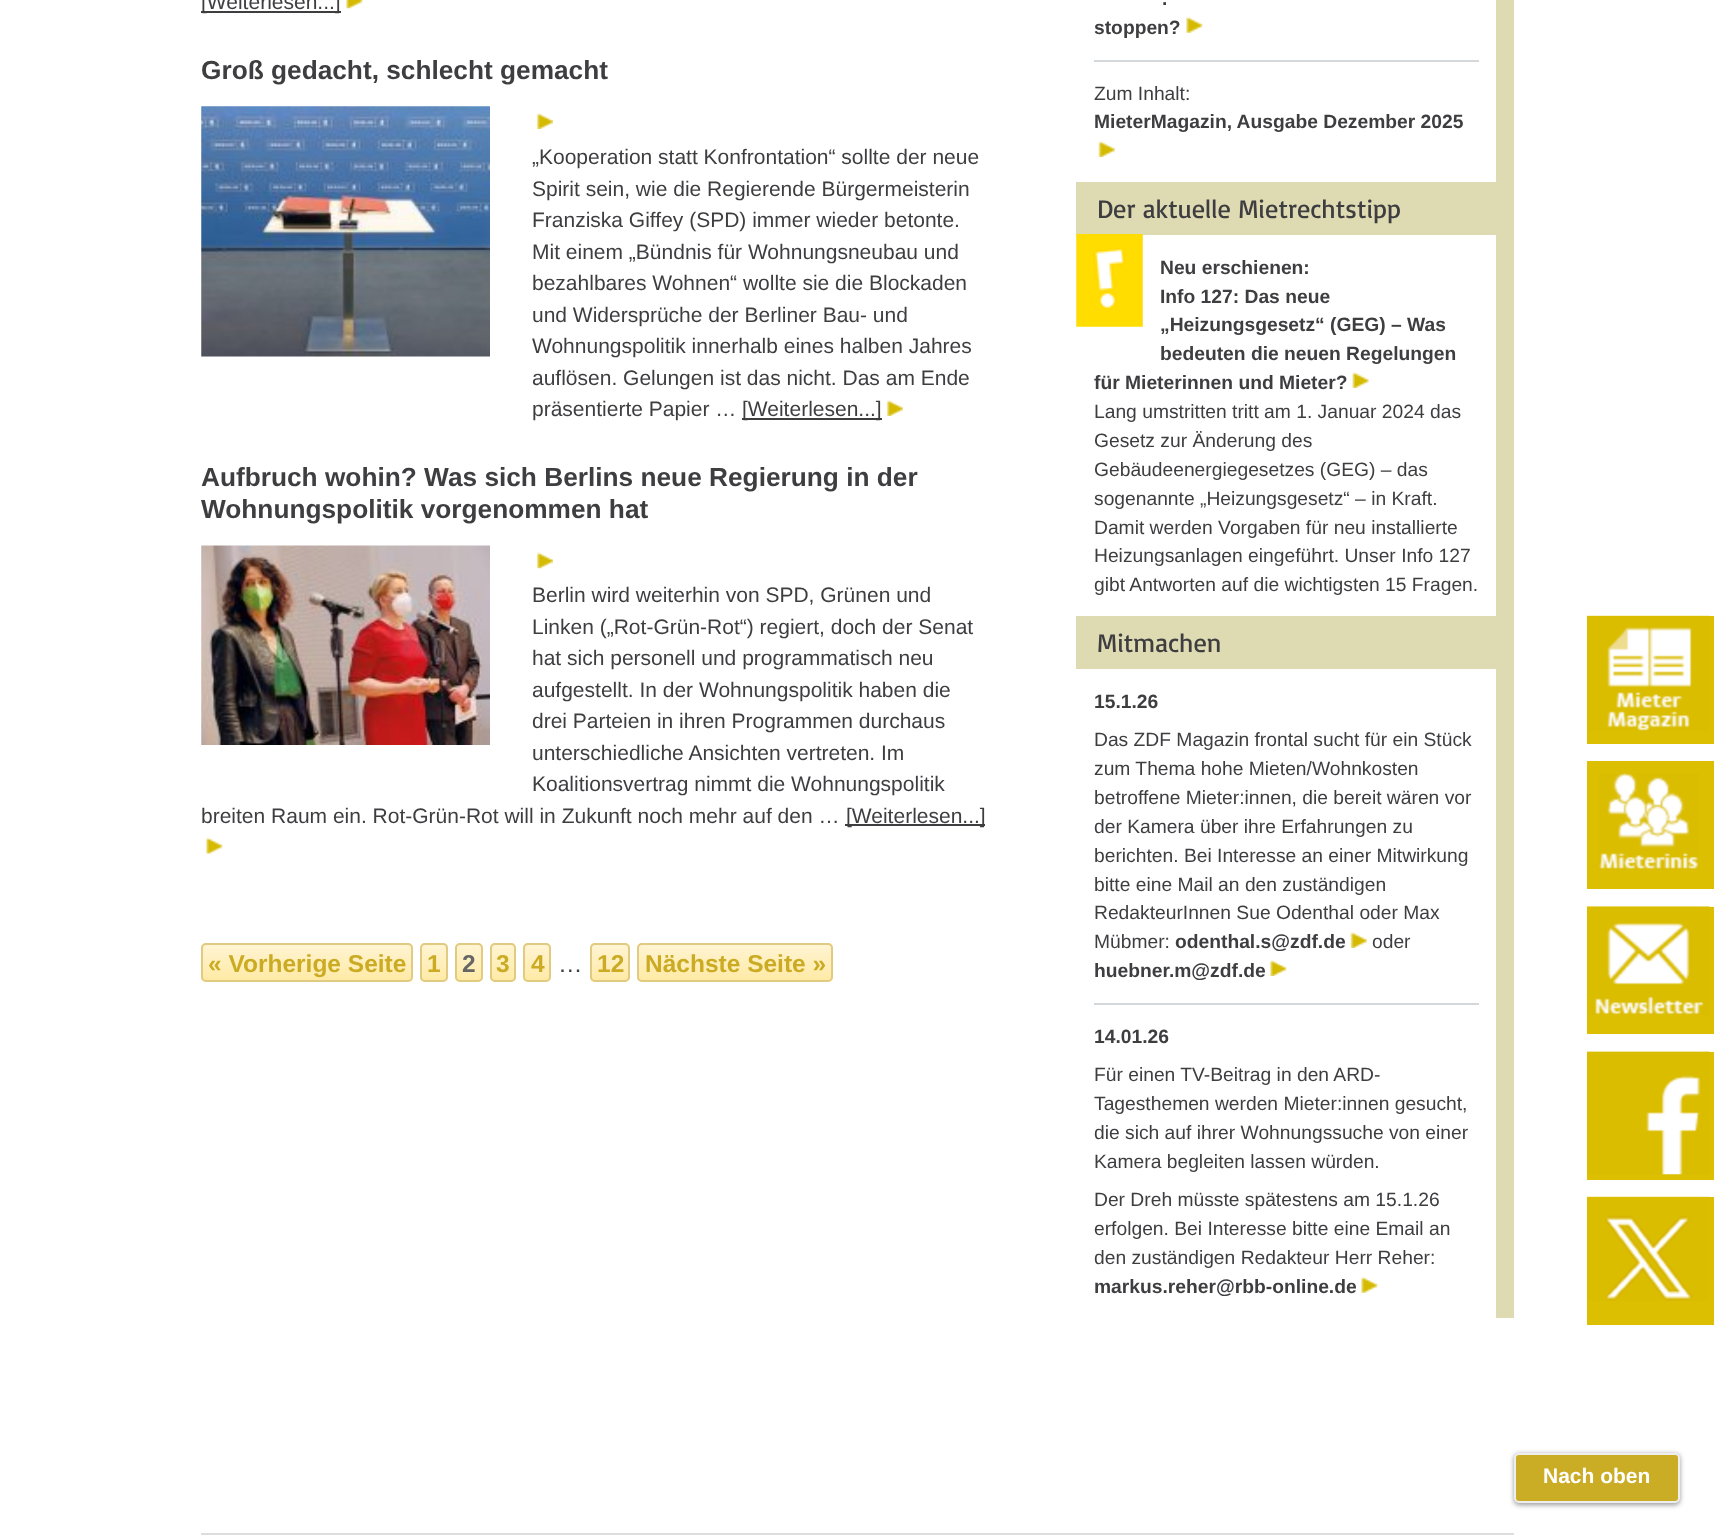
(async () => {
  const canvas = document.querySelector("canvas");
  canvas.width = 1714;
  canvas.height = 1537;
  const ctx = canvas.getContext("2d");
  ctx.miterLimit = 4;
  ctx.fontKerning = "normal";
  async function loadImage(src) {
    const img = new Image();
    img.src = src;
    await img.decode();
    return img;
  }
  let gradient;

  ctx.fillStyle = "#ffffff";
  ctx.fillRect(0, 0, 1714, 1537);
  ctx.fillStyle = "#3e3d40";
  ctx.fillRect(201, 11, 140, 2);
  ctx.drawImage(await loadImage("img/1.png"), 346, 0, 17, 9);
  ctx.drawImage(await loadImage("img/2.png"), 201, 106, 289, 251);
  ctx.drawImage(await loadImage("img/3.png"), 536, 113, 17, 16);
  ctx.fillRect(742, 418, 140, 2);
  ctx.drawImage(await loadImage("img/4.png"), 886, 400, 17, 16);
  ctx.drawImage(await loadImage("img/5.png"), 201, 545, 289, 200);
  ctx.drawImage(await loadImage("img/6.png"), 536, 552, 17, 17);
  ctx.fillRect(845, 824, 140, 2);
  ctx.drawImage(await loadImage("img/7.png"), 206, 837, 17, 17);
  ctx.fillStyle = "#ffeaa6";
  ctx.beginPath();
  ctx.roundRect(201, 943, 212, 39, 5);
  ctx.fill();
  ctx.save();
  ctx.beginPath();
  ctx.roundRect(201, 943, 212, 39, 5);
  ctx.clip();
  gradient = ctx.createLinearGradient(307, 945, 307, 980);
  gradient.addColorStop(0, "rgba(255, 255, 255, 0.5)");
  gradient.addColorStop(1, "rgba(255, 255, 255, 0)");
  ctx.fillStyle = gradient;
  ctx.fillRect(201, 945, 212, 33);
  ctx.restore();
  ctx.beginPath();
  ctx.roundRect(202, 944, 210, 37, 4);
  ctx.strokeStyle = "#e1ca82";
  ctx.lineWidth = 2;
  ctx.stroke();
  ctx.beginPath();
  ctx.roundRect(420, 943, 28, 39, 5);
  ctx.fill();
  ctx.save();
  ctx.beginPath();
  ctx.roundRect(420, 943, 28, 39, 5);
  ctx.clip();
  gradient = ctx.createLinearGradient(434, 945, 434, 980);
  gradient.addColorStop(0, "rgba(255, 255, 255, 0.5)");
  gradient.addColorStop(1, "rgba(255, 255, 255, 0)");
  ctx.fillStyle = gradient;
  ctx.fillRect(420, 945, 28, 33);
  ctx.restore();
  ctx.beginPath();
  ctx.roundRect(421, 944, 26, 37, 4);
  ctx.stroke();
  ctx.beginPath();
  ctx.roundRect(455, 943, 28, 39, 5);
  ctx.fill();
  ctx.save();
  ctx.beginPath();
  ctx.roundRect(455, 943, 28, 39, 5);
  ctx.clip();
  gradient = ctx.createLinearGradient(469, 945, 469, 980);
  gradient.addColorStop(0, "rgba(255, 255, 255, 0.5)");
  gradient.addColorStop(1, "rgba(255, 255, 255, 0)");
  ctx.fillStyle = gradient;
  ctx.fillRect(455, 945, 28, 33);
  ctx.restore();
  ctx.beginPath();
  ctx.roundRect(456, 944, 26, 37, 4);
  ctx.stroke();
  ctx.beginPath();
  ctx.roundRect(490, 943, 26, 39, 5);
  ctx.fill();
  ctx.save();
  ctx.beginPath();
  ctx.roundRect(490, 943, 26, 39, 5);
  ctx.clip();
  gradient = ctx.createLinearGradient(503, 945, 503, 980);
  gradient.addColorStop(0, "rgba(255, 255, 255, 0.5)");
  gradient.addColorStop(1, "rgba(255, 255, 255, 0)");
  ctx.fillStyle = gradient;
  ctx.fillRect(490, 945, 26, 33);
  ctx.restore();
  ctx.beginPath();
  ctx.roundRect(491, 944, 24, 37, 4);
  ctx.stroke();
  ctx.beginPath();
  ctx.roundRect(523, 943, 28, 39, 5);
  ctx.fill();
  ctx.save();
  ctx.beginPath();
  ctx.roundRect(523, 943, 28, 39, 5);
  ctx.clip();
  gradient = ctx.createLinearGradient(537, 945, 537, 980);
  gradient.addColorStop(0, "rgba(255, 255, 255, 0.5)");
  gradient.addColorStop(1, "rgba(255, 255, 255, 0)");
  ctx.fillStyle = gradient;
  ctx.fillRect(523, 945, 28, 33);
  ctx.restore();
  ctx.beginPath();
  ctx.roundRect(524, 944, 26, 37, 4);
  ctx.stroke();
  ctx.beginPath();
  ctx.roundRect(590, 943, 40, 39, 5);
  ctx.fill();
  ctx.save();
  ctx.beginPath();
  ctx.roundRect(590, 943, 40, 39, 5);
  ctx.clip();
  gradient = ctx.createLinearGradient(610, 945, 610, 980);
  gradient.addColorStop(0, "rgba(255, 255, 255, 0.5)");
  gradient.addColorStop(1, "rgba(255, 255, 255, 0)");
  ctx.fillStyle = gradient;
  ctx.fillRect(590, 945, 40, 33);
  ctx.restore();
  ctx.beginPath();
  ctx.roundRect(591, 944, 38, 37, 4);
  ctx.stroke();
  ctx.beginPath();
  ctx.roundRect(637, 943, 196, 39, 5);
  ctx.fill();
  ctx.save();
  ctx.beginPath();
  ctx.roundRect(637, 943, 196, 39, 5);
  ctx.clip();
  gradient = ctx.createLinearGradient(735, 945, 735, 980);
  gradient.addColorStop(0, "rgba(255, 255, 255, 0.5)");
  gradient.addColorStop(1, "rgba(255, 255, 255, 0)");
  ctx.fillStyle = gradient;
  ctx.fillRect(637, 945, 196, 33);
  ctx.restore();
  ctx.beginPath();
  ctx.roundRect(638, 944, 194, 37, 4);
  ctx.stroke();
  ctx.fillStyle = "#dedbb3";
  ctx.fillRect(1496, 0, 18, 182);
  ctx.drawImage(await loadImage("img/8.png"), 1186, 16, 17, 17);
  ctx.fillStyle = "#d4d8da";
  ctx.fillRect(1094, 60, 385, 2);
  ctx.drawImage(await loadImage("img/9.png"), 1098, 141, 17, 16);
  ctx.fillStyle = "#dedbb3";
  ctx.fillRect(1076, 182, 438, 53);
  ctx.fillRect(1496, 235, 18, 381);
  ctx.drawImage(await loadImage("img/10.png"), 1076, 234, 67, 93);
  ctx.drawImage(await loadImage("img/11.png"), 1352, 372, 17, 16);
  ctx.fillRect(1076, 616, 438, 53);
  ctx.fillRect(1496, 669, 18, 649);
  ctx.drawImage(await loadImage("img/9.png"), 1350, 932, 17, 16);
  ctx.drawImage(await loadImage("img/12.png"), 1270, 960, 17, 16);
  ctx.fillStyle = "#d4d8da";
  ctx.fillRect(1094, 1003, 385, 2);
  ctx.drawImage(await loadImage("img/8.png"), 1361, 1276, 17, 17);
  ctx.fillStyle = "#dddddd";
  ctx.fillRect(201, 1533, 1313, 2);
  ctx.fillStyle = "#dbbf00";
  ctx.fillRect(1587, 616, 127, 128);
  ctx.drawImage(await loadImage("img/13.png"), 1587, 615, 123, 116);
  ctx.fillRect(1587, 761, 127, 128);
  ctx.drawImage(await loadImage("img/14.png"), 1599, 773, 100, 97);
  ctx.fillRect(1587, 907, 127, 127);
  ctx.drawImage(await loadImage("img/15.png"), 1587, 906, 123, 109);
  ctx.fillRect(1587, 1052, 127, 128);
  ctx.drawImage(await loadImage("img/16.png"), 1587, 1051, 123, 124);
  ctx.fillRect(1587, 1197, 127, 128);
  ctx.drawImage(await loadImage("img/17.png"), 1587, 1196, 123, 105);
  ctx.fillStyle = "rgba(2, 2, 2, 0.4)";
  ctx.filter = "blur(2.5px)";
  ctx.beginPath();
  ctx.roundRect(1514, 1454, 166, 51, 5);
  ctx.fill();
  ctx.filter = "none";
  ctx.fillStyle = "#cbac25";
  ctx.beginPath();
  ctx.roundRect(1515, 1454, 164, 48, 4);
  ctx.fill();
  ctx.strokeStyle = "#eeeeee";
  ctx.stroke();
  ctx.font = "21px Liberation Sans";
  ctx.fillStyle = "#3e3d40";
  ctx.fillText("[Weiterlesen...]", 201, 9);
  ctx.font = "bold 26.25px Liberation Sans";
  ctx.fillText("Groß gedacht, schlecht gemacht", 201, 79);
  ctx.font = "21px Liberation Sans";
  for (const [text, x, y] of [
    ["„Kooperation statt Konfrontation“ sollte der neue", 532, 164],
    ["Spirit sein, wie die Regierende Bürgermeisterin", 532, 196],
    ["Franziska Giffey (SPD) immer wieder betonte.", 532, 227],
    ["Mit einem „Bündnis für Wohnungsneubau und", 532, 259],
    ["bezahlbares Wohnen“ wollte sie die Blockaden", 532, 290],
    ["und Widersprüche der Berliner Bau- und", 532, 322],
    ["Wohnungspolitik innerhalb eines halben Jahres", 532, 353],
    ["auflösen. Gelungen ist das nicht. Das am Ende", 532, 385],
    ["präsentierte Papier …", 532, 416],
    ["[Weiterlesen...]", 742, 416],
  ]) {
    ctx.fillText(text, x, y);
  }
  ctx.font = "bold 26.25px Liberation Sans";
  ctx.fillText("Aufbruch wohin? Was sich Berlins neue Regierung in der", 201, 486);
  ctx.fillText("Wohnungspolitik vorgenommen hat", 201, 518);
  ctx.font = "21px Liberation Sans";
  for (const [text, x, y] of [
    ["Berlin wird weiterhin von SPD, Grünen und", 532, 602],
    ["Linken („Rot-Grün-Rot“) regiert, doch der Senat", 532, 634],
    ["hat sich personell und programmatisch neu", 532, 665],
    ["aufgestellt. In der Wohnungspolitik haben die", 532, 697],
    ["drei Parteien in ihren Programmen durchaus", 532, 728],
    ["unterschiedliche Ansichten vertreten. Im", 532, 760],
    ["Koalitionsvertrag nimmt die Wohnungspolitik", 532, 791],
    ["breiten Raum ein. Rot-Grün-Rot will in Zukunft noch mehr auf den …", 201, 823],
    ["[Weiterlesen...]", 846, 823],
  ]) {
    ctx.fillText(text, x, y);
  }
  ctx.font = "bold 24.5px Liberation Sans";
  ctx.fillStyle = "#cbab23";
  ctx.fillText("« Vorherige Seite", 208, 972);
  ctx.fillText("1", 427, 972);
  ctx.fillStyle = "#666666";
  ctx.fillText("2", 462, 972);
  ctx.fillStyle = "#cbab23";
  ctx.fillText("3", 496, 972);
  ctx.fillText("4", 531, 972);
  ctx.font = "24.5px Liberation Sans";
  ctx.fillStyle = "#3e3d40";
  ctx.fillText("…", 558, 972);
  ctx.font = "bold 24.5px Liberation Sans";
  ctx.fillStyle = "#cbab23";
  ctx.fillText("12", 597, 972);
  ctx.fillText("Nächste Seite »", 645, 972);
  ctx.font = "bold 19.25px Liberation Sans";
  ctx.fillStyle = "#3e3d40";
  ctx.fillText(".", 1162, 5);
  ctx.fillText("stoppen?", 1094, 34);
  ctx.font = "19.25px Liberation Sans";
  ctx.fillText("Zum Inhalt:", 1094, 100);
  ctx.font = "bold 19.25px Liberation Sans";
  ctx.fillText("MieterMagazin, Ausgabe Dezember 2025", 1094, 128);
  ctx.font = "26.25px Basic";
  ctx.fillText("Der aktuelle Mietrechtstipp", 1097, 218);
  ctx.font = "bold 19.25px Liberation Sans";
  for (const [text, x, y] of [
    ["Neu erschienen:", 1160, 274],
    ["Info 127: Das neue", 1160, 303],
    ["„Heizungsgesetz“ (GEG) – Was", 1160, 331],
    ["bedeuten die neuen Regelungen", 1160, 360],
    ["für Mieterinnen und Mieter?", 1094, 389],
  ]) {
    ctx.fillText(text, x, y);
  }
  ctx.font = "19.25px Liberation Sans";
  for (const [text, x, y] of [
    ["Lang umstritten tritt am 1. Januar 2024 das", 1094, 418],
    ["Gesetz zur Änderung des", 1094, 447],
    ["Gebäudeenergiegesetzes (GEG) – das", 1094, 476],
    ["sogenannte „Heizungsgesetz“ – in Kraft.", 1094, 505],
    ["Damit werden Vorgaben für neu installierte", 1094, 534],
    ["Heizungsanlagen eingeführt. Unser Info 127", 1094, 562],
    ["gibt Antworten auf die wichtigsten 15 Fragen.", 1094, 591],
  ]) {
    ctx.fillText(text, x, y);
  }
  ctx.font = "26.25px Basic";
  ctx.fillText("Mitmachen", 1097, 652);
  ctx.font = "bold 19.25px Liberation Sans";
  ctx.fillText("15.1.26", 1094, 708);
  ctx.font = "19.25px Liberation Sans";
  for (const [text, x, y] of [
    ["Das ZDF Magazin frontal sucht für ein Stück", 1094, 746],
    ["zum Thema hohe Mieten/Wohnkosten", 1094, 775],
    ["betroffene Mieter:innen, die bereit wären vor", 1094, 804],
    ["der Kamera über ihre Erfahrungen zu", 1094, 833],
    ["berichten. Bei Interesse an einer Mitwirkung", 1094, 862],
    ["bitte eine Mail an den zuständigen", 1094, 891],
    ["RedakteurInnen Sue Odenthal oder Max", 1094, 919],
    ["Mübmer:", 1094, 948],
  ]) {
    ctx.fillText(text, x, y);
  }
  ctx.font = "bold 19.25px Liberation Sans";
  ctx.fillText("odenthal.s@zdf.de", 1175, 948);
  ctx.font = "19.25px Liberation Sans";
  ctx.fillText("oder", 1372, 948);
  ctx.font = "bold 19.25px Liberation Sans";
  ctx.fillText("huebner.m@zdf.de", 1094, 977);
  ctx.fillText("14.01.26", 1094, 1043);
  ctx.font = "19.25px Liberation Sans";
  for (const [text, x, y] of [
    ["Für einen TV-Beitrag in den ARD-", 1094, 1081],
    ["Tagesthemen werden Mieter:innen gesucht,", 1094, 1110],
    ["die sich auf ihrer Wohnungssuche von einer", 1094, 1139],
    ["Kamera begleiten lassen würden.", 1094, 1168],
    ["Der Dreh müsste spätestens am 15.1.26", 1094, 1206],
    ["erfolgen. Bei Interesse bitte eine Email an", 1094, 1235],
    ["den zuständigen Redakteur Herr Reher:", 1094, 1264],
  ]) {
    ctx.fillText(text, x, y);
  }
  ctx.font = "bold 19.25px Liberation Sans";
  ctx.fillText("markus.reher@rbb-online.de", 1094, 1293);
  ctx.font = "bold 21px Liberation Sans";
  ctx.fillStyle = "#ffffff";
  ctx.fillText("Nach oben", 1543, 1483);
})();
